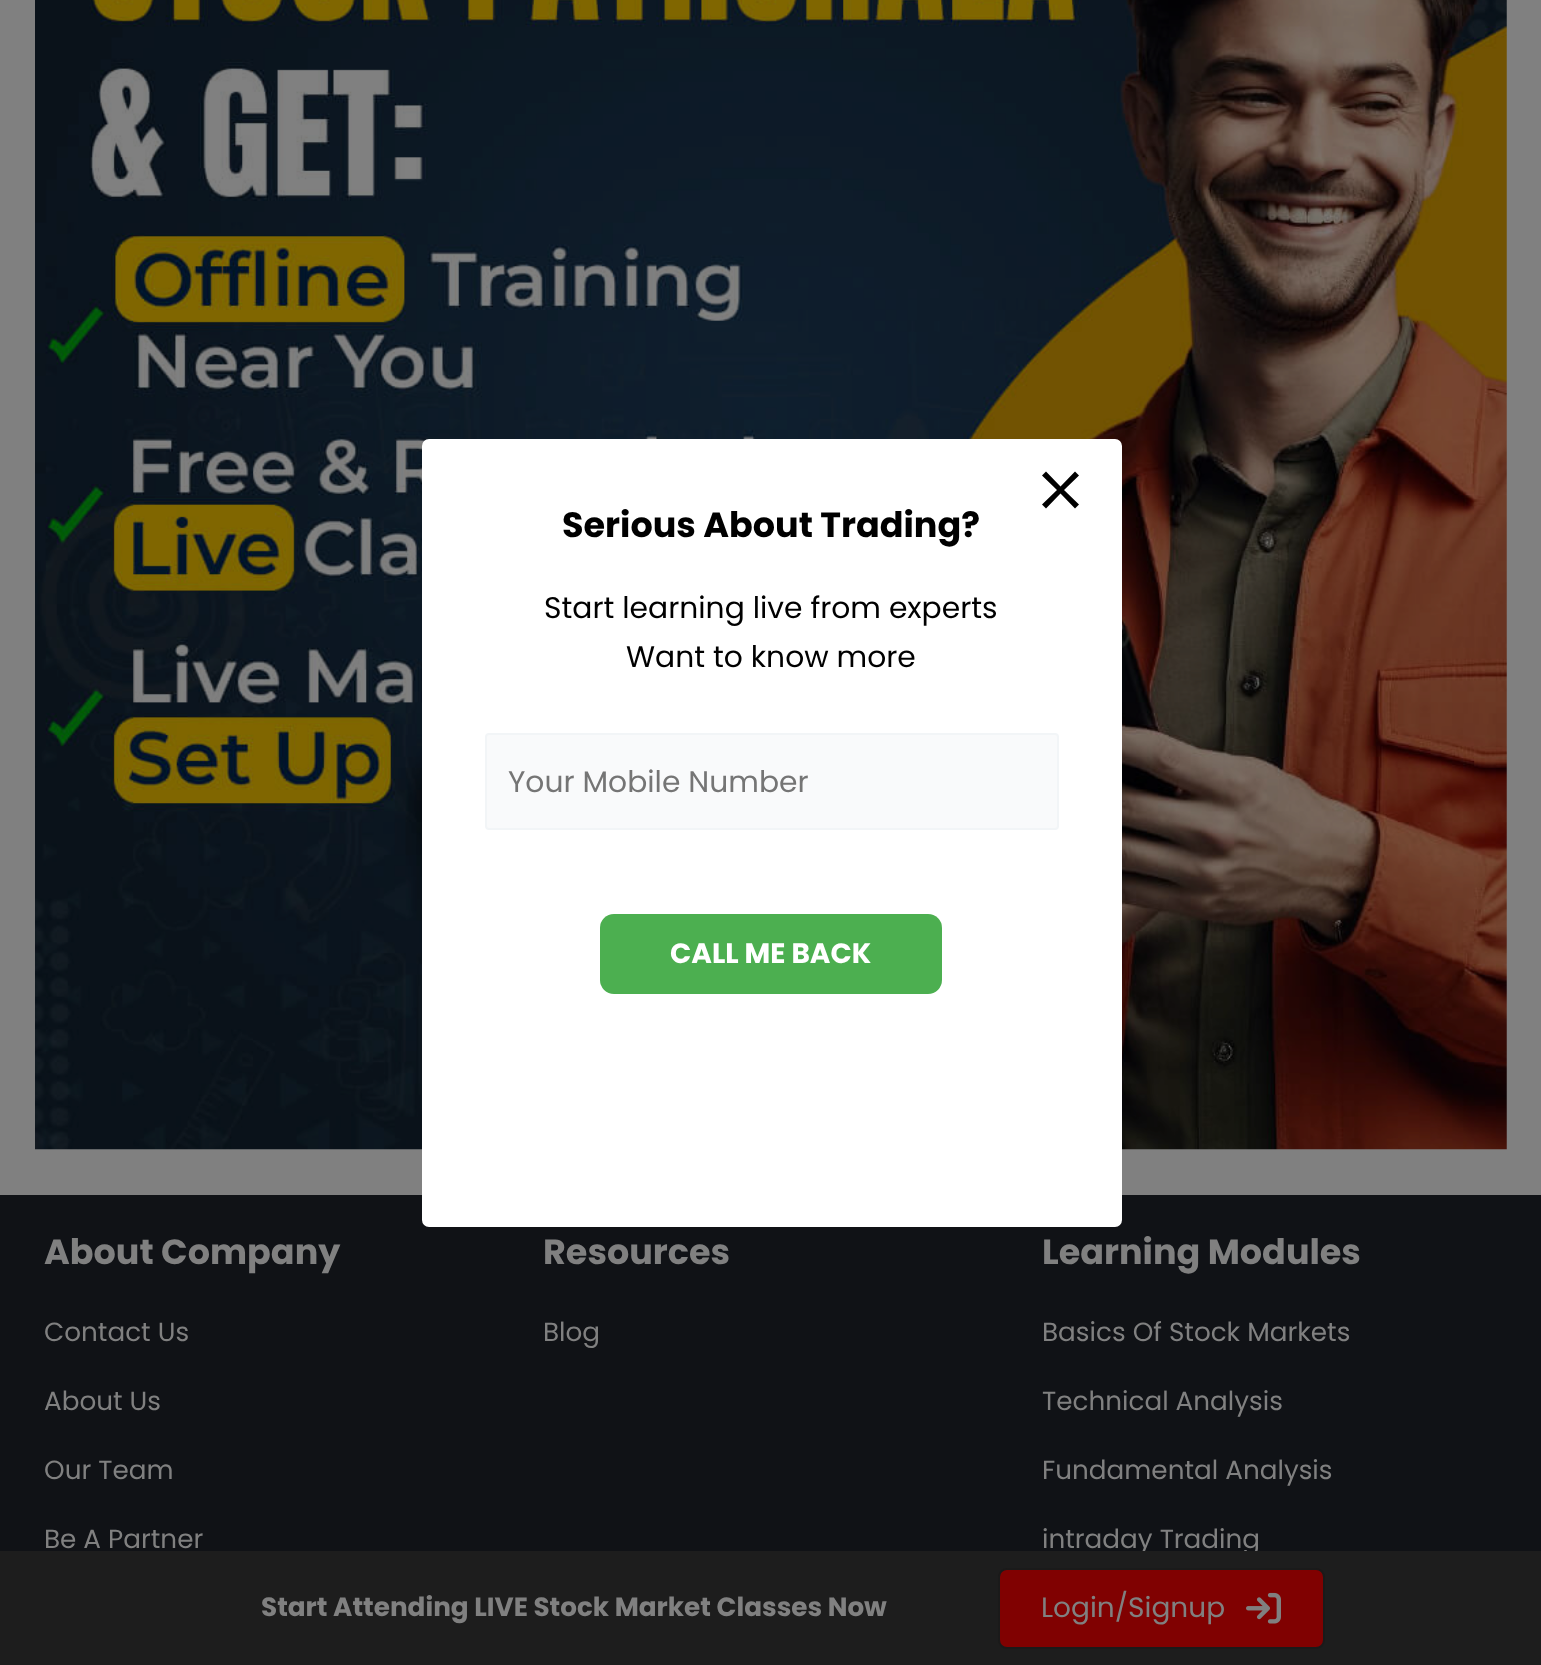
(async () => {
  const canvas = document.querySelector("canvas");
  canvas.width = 1541;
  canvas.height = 1665;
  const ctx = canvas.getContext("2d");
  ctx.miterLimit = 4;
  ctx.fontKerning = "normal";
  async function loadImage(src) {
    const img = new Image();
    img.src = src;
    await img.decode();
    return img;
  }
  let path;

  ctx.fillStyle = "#808080";
  ctx.fillRect(0, 0, 1541, 1665);
  ctx.drawImage(await loadImage("img/1.png"), 35, 0, 1472, 1150);
  ctx.fillStyle = "#101216";
  ctx.fillRect(0, 1195, 1541, 356);
  ctx.fillStyle = "#ffffff";
  ctx.beginPath();
  ctx.roundRect(423, 440, 698, 786, 6);
  ctx.fill();
  ctx.strokeStyle = "#ffffff";
  ctx.lineWidth = 2;
  ctx.stroke();
  ctx.fillStyle = "#000000";
  path = new Path2D("M1079 475.5L1075 471.5L1060.5 486.5L1046 471.5L1042 475.5L1057 490L1042 504.5L1046 508.5L1060.5 493.5L1075 508.5L1079 504.5L1064 490Z");
  ctx.fill(path);
  ctx.fillStyle = "#f9fafb";
  ctx.beginPath();
  ctx.roundRect(486, 734, 572, 95, 3);
  ctx.fill();
  ctx.strokeStyle = "#f2f5f7";
  ctx.stroke();
  ctx.fillStyle = "#4caf50";
  ctx.beginPath();
  ctx.roundRect(600, 914, 342, 80, 14);
  ctx.fill();
  ctx.font = "bold 35px Poppins";
  ctx.fillStyle = "#000000";
  ctx.fillText("Serious About Trading?", 562, 537);
  ctx.font = "29.75px Poppins";
  ctx.fillText("Start learning live from experts", 544, 618);
  ctx.fillText("Want to know more", 626, 667);
  ctx.fillStyle = "#757575";
  ctx.fillText("Your Mobile Number", 508, 792);
  ctx.font = "bold 28px Poppins";
  ctx.fillStyle = "#ffffff";
  ctx.fillText("CALL ME BACK", 670, 963);
  ctx.font = "bold 35px Poppins";
  ctx.fillStyle = "#808080";
  ctx.fillText("About Company", 44, 1264);
  ctx.font = "26.25px Poppins";
  for (const [text, x, y] of [
    ["Contact Us", 44, 1341],
    ["About Us", 44, 1410],
    ["Our Team", 44, 1479],
    ["Be A Partner", 44, 1548],
  ]) {
    ctx.fillText(text, x, y);
  }
  ctx.font = "bold 35px Poppins";
  ctx.fillText("Resources", 543, 1264);
  ctx.font = "26.25px Poppins";
  ctx.fillText("Blog", 543, 1341);
  ctx.font = "bold 35px Poppins";
  ctx.fillText("Learning Modules", 1042, 1264);
  ctx.font = "26.25px Poppins";
  for (const [text, x, y] of [
    ["Basics Of Stock Markets", 1042, 1341],
    ["Technical Analysis", 1042, 1410],
    ["Fundamental Analysis", 1042, 1479],
    ["intraday Trading", 1042, 1548],
  ]) {
    ctx.fillText(text, x, y);
  }
  ctx.fillStyle = "#1d1d1d";
  ctx.fillRect(0, 1551, 1541, 114);
  ctx.font = "bold 26.25px Poppins";
  ctx.fillStyle = "#808080";
  ctx.fillText("Start Attending LIVE Stock Market Classes Now", 261, 1616);
  ctx.fillStyle = "#800101";
  ctx.beginPath();
  ctx.roundRect(999, 1569, 325, 79, 8);
  ctx.fill();
  ctx.strokeStyle = "#1a1a1a";
  ctx.stroke();
  ctx.font = "28px Poppins";
  ctx.fillStyle = "#808080";
  ctx.fillText("Login/Signup", 1041, 1617);
  ctx.drawImage(await loadImage("img/2.png"), 1246, 1592, 35, 32);
})();
